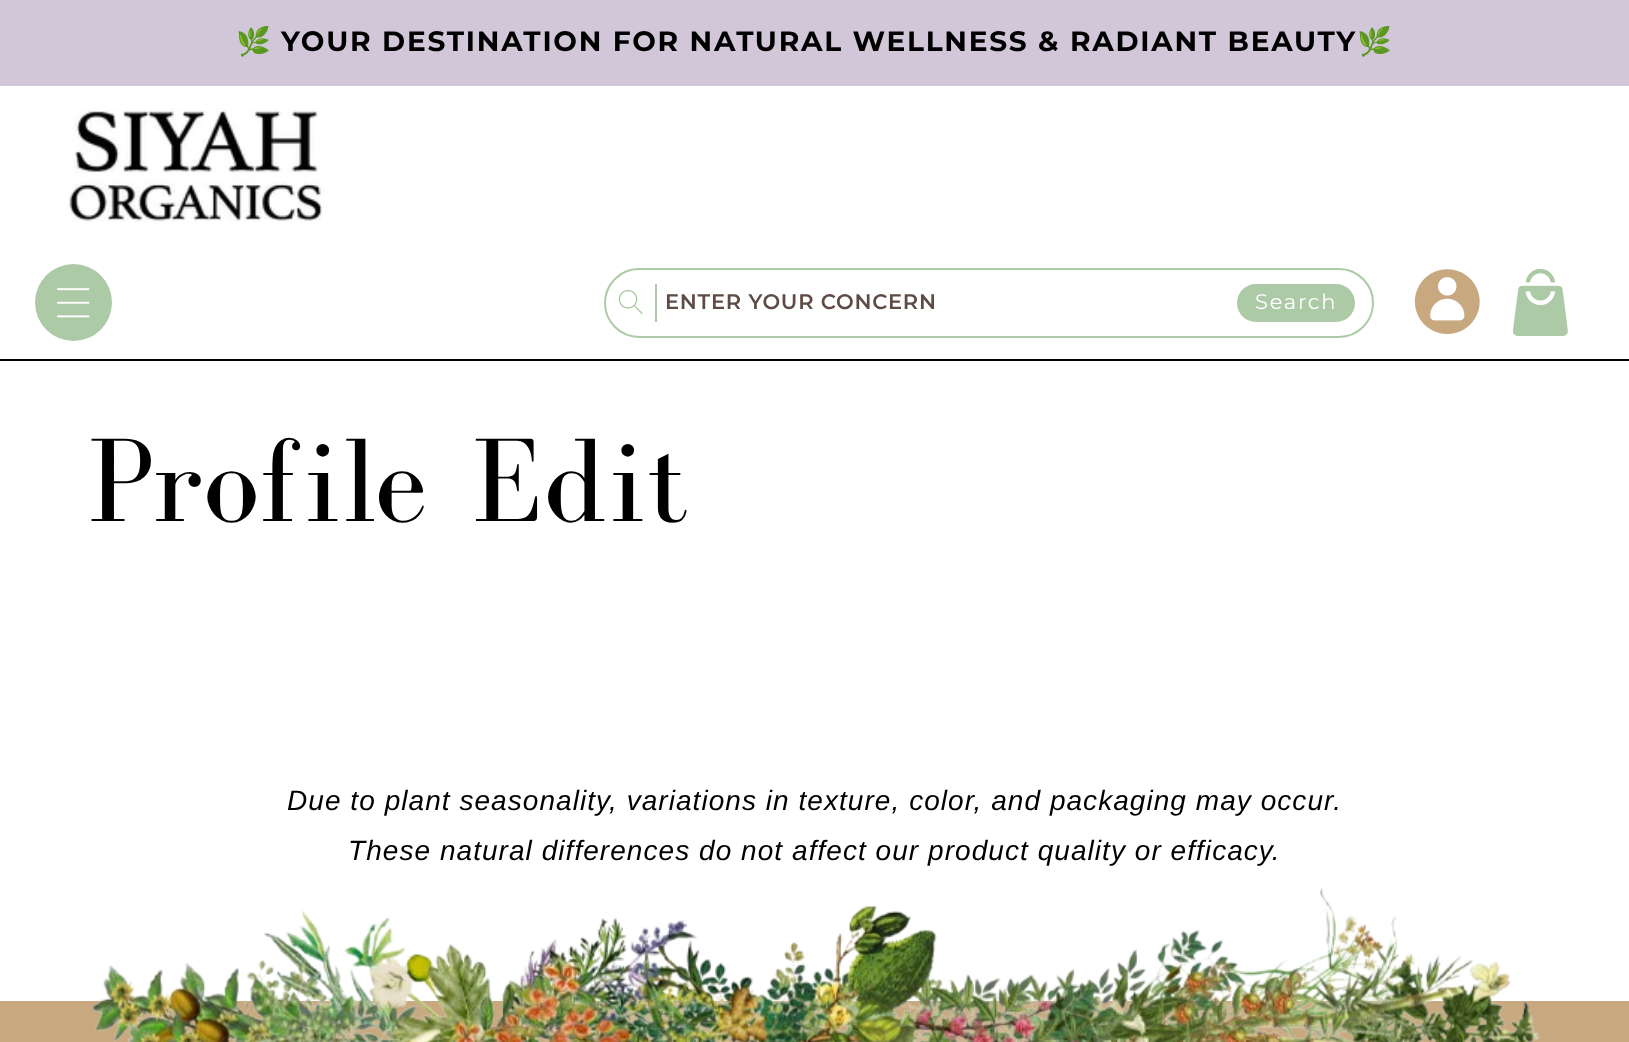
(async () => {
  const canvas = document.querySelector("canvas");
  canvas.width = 1629;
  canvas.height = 1042;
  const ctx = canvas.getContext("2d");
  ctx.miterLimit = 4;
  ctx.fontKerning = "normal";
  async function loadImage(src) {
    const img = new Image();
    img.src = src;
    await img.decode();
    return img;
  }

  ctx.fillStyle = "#ffffff";
  ctx.fillRect(0, 0, 1629, 1042);
  ctx.fillStyle = "#d1c7d9";
  ctx.fillRect(0, 0, 1629, 86);
  ctx.fillStyle = "#000000";
  ctx.fillRect(0, 359, 1629, 2);
  ctx.drawImage(await loadImage("img/1.png"), 67, 109, 257, 113);
  ctx.fillStyle = "#adcaa6";
  ctx.beginPath();
  ctx.arc(73.5, 302.5, 38.5, 0, Math.PI * 2);
  ctx.fill();
  ctx.drawImage(await loadImage("img/2.png"), 57, 288, 33, 30);
  ctx.beginPath();
  ctx.roundRect(605, 269, 768, 68, 34);
  ctx.strokeStyle = "#adcaa6";
  ctx.lineWidth = 2;
  ctx.stroke();
  ctx.fillRect(655, 284, 2, 38);
  ctx.drawImage(await loadImage("img/3.png"), 618, 289, 25, 25);
  ctx.beginPath();
  ctx.roundRect(1237, 284, 118, 38, 19);
  ctx.fill();
  ctx.drawImage(await loadImage("img/4.png"), 1414, 269, 66, 65);
  ctx.drawImage(await loadImage("img/5.png"), 1513, 268, 55, 68);
  ctx.fillStyle = "#c8a87e";
  ctx.fillRect(0, 1001, 1629, 41);
  ctx.drawImage(await loadImage("img/6.png"), 92, 887, 1448, 155);
  ctx.letterSpacing = "1.75px";
  ctx.font = "28px Noto Color Emoji";
  ctx.fillStyle = "#000000";
  ctx.fillText("🌿", 236, 51);
  ctx.font = "bold 28px Montserrat";
  ctx.fillText("YOUR DESTINATION FOR NATURAL WELLNESS & RADIANT BEAUTY", 281, 51);
  ctx.font = "28px Noto Color Emoji";
  ctx.fillText("🌿", 1357, 51);
  ctx.letterSpacing = "0.75px";
  ctx.font = "600 21px Montserrat";
  ctx.fillStyle = "#5e4b45";
  ctx.fillText("ENTER YOUR CONCERN", 665, 309);
  ctx.letterSpacing = "1.75px";
  ctx.font = "21px Montserrat";
  ctx.fillStyle = "#ffffff";
  ctx.fillText("Search", 1255, 309);
  ctx.letterSpacing = "1.8px";
  ctx.wordSpacing = "7px";
  ctx.font = "122.5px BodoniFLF";
  ctx.fillStyle = "#000000";
  ctx.fillText("Profile Edit", 88, 521);
  ctx.letterSpacing = "1.05px";
  ctx.wordSpacing = "0px";
  ctx.font = "italic 28px Liberation Sans";
  ctx.fillText("Due to plant seasonality, variations in texture, color, and packaging may occur.", 287, 810);
  ctx.fillText("These natural differences do not affect our product quality or efficacy.", 348, 860);
})();
